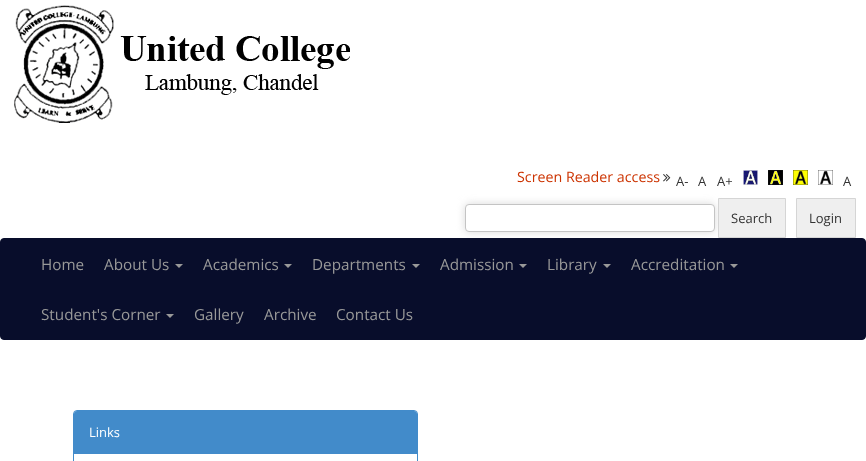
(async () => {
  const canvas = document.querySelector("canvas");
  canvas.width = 866;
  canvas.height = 461;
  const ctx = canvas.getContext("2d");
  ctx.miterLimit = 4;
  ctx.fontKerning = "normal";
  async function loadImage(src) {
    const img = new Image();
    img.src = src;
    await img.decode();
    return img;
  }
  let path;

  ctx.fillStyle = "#ffffff";
  ctx.fillRect(0, 0, 866, 461);
  ctx.drawImage(await loadImage("img/1.png"), 14, 5, 336, 118);
  ctx.drawImage(await loadImage("img/2.png"), 663, 174, 8, 8);
  ctx.drawImage(await loadImage("img/3.png"), 743, 170, 15, 15);
  ctx.drawImage(await loadImage("img/4.png"), 768, 170, 15, 15);
  ctx.drawImage(await loadImage("img/5.png"), 793, 170, 15, 15);
  ctx.drawImage(await loadImage("img/6.png"), 818, 170, 15, 15);
  ctx.fillStyle = "#d9d9d9";
  ctx.filter = "blur(4px)";
  ctx.beginPath();
  ctx.roundRect(465, 204, 250, 28, 4);
  ctx.fill();
  ctx.filter = "none";
  ctx.fillStyle = "#ffffff";
  ctx.beginPath();
  ctx.roundRect(465.5, 204.5, 249, 27, 3.5);
  ctx.fill();
  ctx.strokeStyle = "#c4c4c4";
  ctx.stroke();
  ctx.fillStyle = "#efefef";
  ctx.beginPath();
  ctx.rect(718.5, 198.5, 67, 39);
  ctx.fill();
  ctx.strokeStyle = "#d5d5d5";
  ctx.stroke();
  ctx.beginPath();
  ctx.rect(796.5, 198.5, 59, 39);
  ctx.fill();
  ctx.stroke();
  ctx.fillStyle = "#080d2b";
  ctx.beginPath();
  ctx.roundRect(0.5, 238.5, 865, 101, 3.5);
  ctx.fill();
  ctx.strokeStyle = "#080d2b";
  ctx.stroke();
  ctx.fillStyle = "#999999";
  path = new Path2D("M175 264H183L179 268Z");
  ctx.fill(path);
  path = new Path2D("M284 264H292L288 268Z");
  ctx.fill(path);
  path = new Path2D("M412 264H420L416 268Z");
  ctx.fill(path);
  path = new Path2D("M519 264H527L523 268Z");
  ctx.fill(path);
  path = new Path2D("M603 264H611L607 268Z");
  ctx.fill(path);
  path = new Path2D("M730 264H738L734 268Z");
  ctx.fill(path);
  path = new Path2D("M166 314H174L170 318Z");
  ctx.fill(path);
  ctx.beginPath();
  ctx.roundRect(73.5, 410.5, 344, 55, 3.5);
  ctx.strokeStyle = "#428bca";
  ctx.stroke();
  ctx.fillStyle = "#428bca";
  ctx.beginPath();
  ctx.roundRect(74, 411, 343, 43, [3, 3, 0, 0]);
  ctx.fill();
  ctx.font = "14.25px Open Sans";
  ctx.fillStyle = "#cc3300";
  ctx.fillText("Screen Reader access", 517, 182);
  ctx.font = "13px Open Sans";
  ctx.fillStyle = "#333333";
  for (const [text, x, y] of [
    ["A-", 676, 186],
    ["A", 698, 186],
    ["A+", 717, 186],
    ["A", 843, 186],
    ["Search", 731, 223],
    ["Login", 809, 223],
  ]) {
    ctx.fillText(text, x, y);
  }
  ctx.font = "15.25px Open Sans";
  ctx.fillStyle = "#999999";
  for (const [text, x, y] of [
    ["Home", 41, 270],
    ["About Us", 104, 270],
    ["Academics", 203, 270],
    ["Departments", 312, 270],
    ["Admission", 440, 270],
    ["Library", 547, 270],
    ["Accreditation", 631, 270],
    ["Student's Corner", 41, 320],
    ["Gallery", 194, 320],
    ["Archive", 264, 320],
    ["Contact Us", 336, 320],
  ]) {
    ctx.fillText(text, x, y);
  }
  ctx.font = "13px Open Sans";
  ctx.fillStyle = "#ffffff";
  ctx.fillText("Links", 89, 437);
})();
